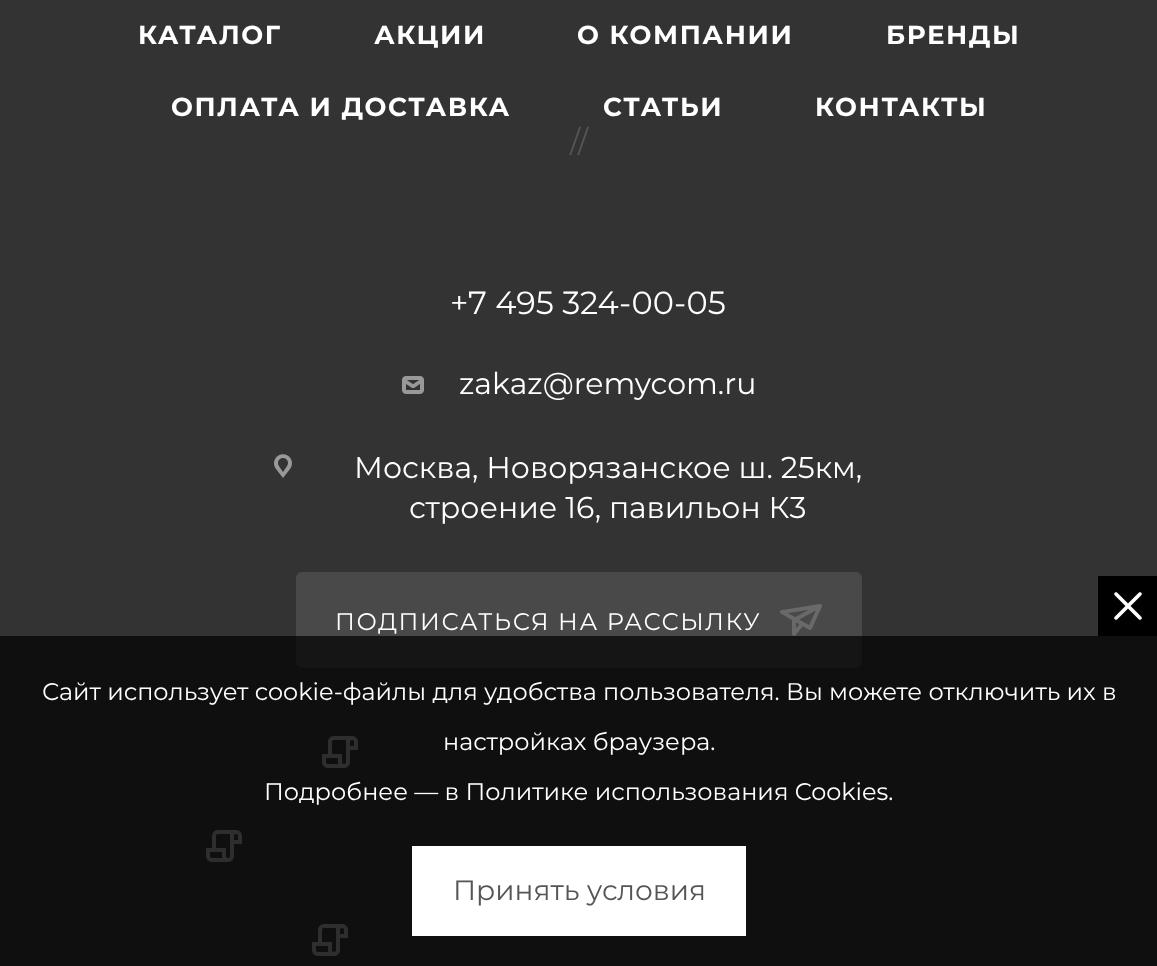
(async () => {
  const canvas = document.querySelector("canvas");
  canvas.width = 1157;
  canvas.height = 966;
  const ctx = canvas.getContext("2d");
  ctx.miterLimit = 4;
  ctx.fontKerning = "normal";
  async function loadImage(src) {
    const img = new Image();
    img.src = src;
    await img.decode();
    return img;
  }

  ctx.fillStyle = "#333333";
  ctx.fillRect(0, 0, 1157, 966);
  ctx.drawImage(await loadImage("img/1.png"), 402, 376, 22, 18);
  ctx.drawImage(await loadImage("img/2.png"), 274, 454, 18, 24);
  ctx.fillStyle = "#494949";
  ctx.beginPath();
  ctx.roundRect(297, 573, 564, 94, 5);
  ctx.fill();
  ctx.strokeStyle = "#494949";
  ctx.lineWidth = 2;
  ctx.stroke();
  ctx.drawImage(await loadImage("img/3.png"), 780, 604, 42, 32);
  ctx.drawImage(await loadImage("img/4.png"), 322, 736, 36, 32);
  ctx.drawImage(await loadImage("img/4.png"), 206, 830, 36, 32);
  ctx.drawImage(await loadImage("img/4.png"), 312, 924, 36, 32);
  ctx.fillStyle = "rgba(0, 0, 0, 0.7)";
  ctx.fillRect(0, 636, 1157, 330);
  ctx.fillStyle = "#000000";
  ctx.fillRect(1098, 576, 59, 60);
  ctx.drawImage(await loadImage("img/5.png"), 1114, 592, 28, 28);
  ctx.fillStyle = "#ffffff";
  ctx.fillRect(412, 846, 334, 90);
  ctx.letterSpacing = "1.6px";
  ctx.font = "bold 26px Montserrat";
  for (const [text, x, y] of [
    ["КАТАЛОГ", 138, 44],
    ["АКЦИИ", 374, 44],
    ["О КОМПАНИИ", 577, 44],
    ["БРЕНДЫ", 886, 44],
    ["ОПЛАТА И ДОСТАВКА", 171, 116],
    ["СТАТЬИ", 603, 116],
    ["КОНТАКТЫ", 815, 116],
  ]) {
    ctx.fillText(text, x, y);
  }
  ctx.letterSpacing = "0px";
  ctx.font = "30px Montserrat";
  ctx.fillStyle = "#555555";
  ctx.fillText("//", 570, 152);
  ctx.font = "32px Montserrat";
  ctx.fillStyle = "#ffffff";
  ctx.fillText("+7 495 324-00-05", 450, 314);
  ctx.font = "30px Montserrat";
  for (const [text, x, y] of [
    ["zakaz@remycom.ru", 459, 394],
    ["Москва, Новорязанское ш. 25км,", 354, 478],
    ["строение 16, павильон К3", 409, 518],
  ]) {
    ctx.fillText(text, x, y);
  }
  ctx.letterSpacing = "1.6px";
  ctx.font = "24px Montserrat";
  ctx.fillText("ПОДПИСАТЬСЯ НА РАССЫЛКУ", 335, 630);
  ctx.letterSpacing = "0px";
  for (const [text, x, y] of [
    ["Сайт использует cookie-файлы для удобства пользователя. Вы можете отключить их в", 42, 700],
    ["настройках браузера.", 443, 750],
    ["Подробнее — в Политике использования Cookies.", 264, 800],
  ]) {
    ctx.fillText(text, x, y);
  }
  ctx.font = "28px Montserrat";
  ctx.fillStyle = "#555555";
  ctx.fillText("Принять условия", 453, 900);
})();
